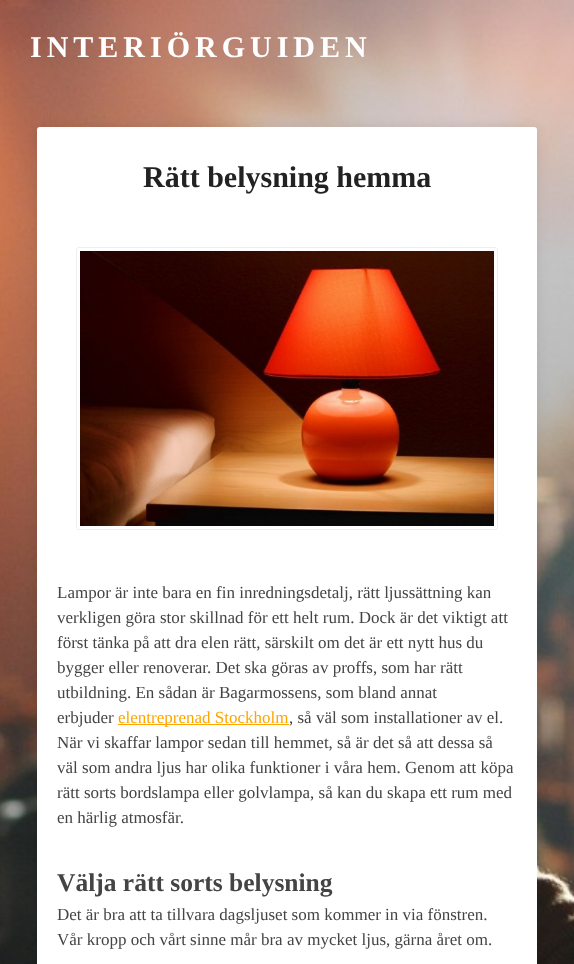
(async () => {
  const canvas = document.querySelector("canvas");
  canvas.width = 574;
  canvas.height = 964;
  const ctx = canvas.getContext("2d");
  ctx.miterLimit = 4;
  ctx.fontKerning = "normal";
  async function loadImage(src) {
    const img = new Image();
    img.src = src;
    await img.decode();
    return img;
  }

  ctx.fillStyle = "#ffffff";
  ctx.fillRect(0, 0, 574, 964);
  ctx.drawImage(await loadImage("img/1.png"), 0, 0, 574, 964);
  ctx.fillStyle = "rgba(0, 0, 0, 0.08)";
  ctx.filter = "blur(6px)";
  ctx.beginPath();
  ctx.roundRect(37, 127, 500, 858, 3);
  ctx.fill();
  ctx.filter = "none";
  ctx.fillStyle = "#ffffff";
  ctx.beginPath();
  ctx.roundRect(37, 127, 500, 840, 3);
  ctx.fill();
  ctx.beginPath();
  ctx.roundRect(76.5, 247.5, 421, 282, 2.5);
  ctx.strokeStyle = "#eeeeee";
  ctx.stroke();
  ctx.drawImage(await loadImage("img/2.png"), 80, 251, 414, 275);
  ctx.fillStyle = "#ffa500";
  ctx.fillRect(118, 724, 171, 1);
  ctx.letterSpacing = "5px";
  ctx.font = "bold 30px Liberation Serif";
  ctx.fillStyle = "#ffffff";
  ctx.fillText("INTERIÖRGUIDEN", 30, 57);
  ctx.letterSpacing = "0px";
  ctx.fillStyle = "#222222";
  ctx.fillText("Rätt belysning hemma", 143, 187);
  ctx.font = "17px Liberation Serif";
  ctx.fillStyle = "#444444";
  for (const [text, x, y] of [
    ["Lampor är inte bara en fin inredningsdetalj, rätt ljussättning kan", 57, 598],
    ["verkligen göra stor skillnad för ett helt rum. Dock är det viktigt att", 57, 623],
    ["först tänka på att dra elen rätt, särskilt om det är ett nytt hus du", 57, 648],
    ["bygger eller renoverar. Det ska göras av proffs, som har rätt", 57, 673],
    ["utbildning. En sådan är Bagarmossens, som bland annat", 57, 698],
    ["erbjuder", 57, 723],
  ]) {
    ctx.fillText(text, x, y);
  }
  ctx.fillStyle = "#ffa500";
  ctx.fillText("elentreprenad Stockholm", 118, 723);
  ctx.fillStyle = "#444444";
  for (const [text, x, y] of [
    [", så väl som installationer av el.", 289, 723],
    ["När vi skaffar lampor sedan till hemmet, så är det så att dessa så", 57, 748],
    ["väl som andra ljus har olika funktioner i våra hem. Genom att köpa", 57, 773],
    ["rätt sorts bordslampa eller golvlampa, så kan du skapa ett rum med", 57, 798],
    ["en härlig atmosfär.", 57, 823],
  ]) {
    ctx.fillText(text, x, y);
  }
  ctx.font = "bold 25.5px Liberation Serif";
  ctx.fillText("Välja rätt sorts belysning", 57, 891);
  ctx.font = "17px Liberation Serif";
  ctx.fillText("Det är bra att ta tillvara dagsljuset som kommer in via fönstren.", 57, 920);
  ctx.fillText("Vår kropp och vårt sinne mår bra av mycket ljus, gärna året om.", 57, 945);
})();
